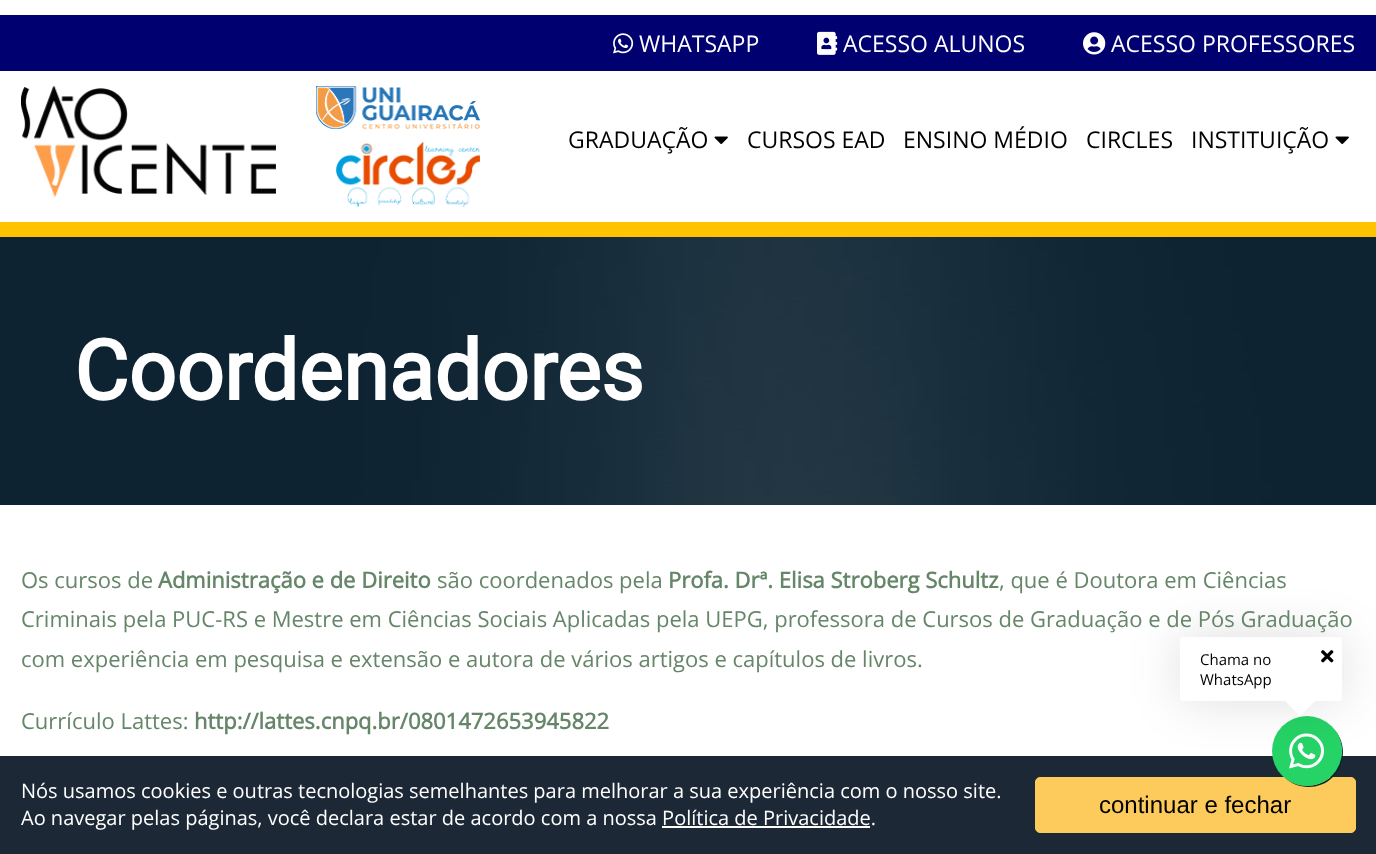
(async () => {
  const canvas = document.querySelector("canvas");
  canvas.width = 1376;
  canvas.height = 854;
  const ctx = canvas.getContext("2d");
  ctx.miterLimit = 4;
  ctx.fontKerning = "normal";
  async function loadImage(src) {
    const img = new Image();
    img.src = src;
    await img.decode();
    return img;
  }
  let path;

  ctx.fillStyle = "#ffffff";
  ctx.fillRect(0, 0, 1376, 854);
  ctx.fillStyle = "#ffc300";
  ctx.fillRect(0, 222, 1376, 15);
  ctx.fillStyle = "#000071";
  ctx.fillRect(0, 15, 1376, 56);
  ctx.drawImage(await loadImage("img/1.png"), 613, 33, 21, 21);
  ctx.drawImage(await loadImage("img/2.png"), 817, 31, 21, 24);
  ctx.drawImage(await loadImage("img/3.png"), 1083, 32, 23, 23);
  ctx.drawImage(await loadImage("img/4.png"), 21, 86, 255, 111);
  ctx.drawImage(await loadImage("img/5.png"), 316, 86, 164, 43);
  ctx.drawImage(await loadImage("img/6.png"), 336, 142, 144, 65);
  ctx.drawImage(await loadImage("img/7.png"), 714, 136, 14, 8);
  ctx.drawImage(await loadImage("img/7.png"), 1335, 136, 14, 8);
  ctx.drawImage(await loadImage("img/8.png"), 0, 237, 1376, 268);
  ctx.fillStyle = "#1c2835";
  ctx.fillRect(0, 756, 1376, 98);
  ctx.fillStyle = "#fccb5b";
  ctx.beginPath();
  ctx.roundRect(1035.5, 777.5, 320, 55, 4.5);
  ctx.fill();
  ctx.strokeStyle = "#fccb5b";
  ctx.stroke();
  ctx.fillStyle = "#042825";
  path = new Path2D("M1283 776C1296 790 1319 791 1333 777C1347 763 1346 740 1332 727C1345 740 1345 762 1332 776C1318 789 1296 789 1283 776Z");
  ctx.fill(path);
  ctx.fillStyle = "#25d366";
  ctx.beginPath();
  ctx.arc(1307, 751, 35, 0, Math.PI * 2);
  ctx.fill();
  ctx.drawImage(await loadImage("img/10.png"), 1289, 733, 35, 36);
  ctx.fillStyle = "rgba(0, 0, 0, 0.13)";
  ctx.filter = "blur(25px)";
  ctx.beginPath();
  ctx.roundRect(1180, 637, 162, 64, 3);
  ctx.fill();
  ctx.filter = "none";
  ctx.fillStyle = "#ffffff";
  ctx.beginPath();
  ctx.roundRect(1180, 637, 162, 64, 3);
  ctx.fill();
  ctx.drawImage(await loadImage("img/9.png"), 1321, 650, 13, 13);
  path = new Path2D("M1285 701H1315L1300 716Z");
  ctx.fill(path);
  ctx.fillRect(662, 826, 208, 2);
  ctx.font = "23px Open Sans";
  for (const [text, x, y] of [
    ["WHATSAPP", 639, 52],
    ["ACESSO ALUNOS", 843, 52],
    ["ACESSO PROFESSORES", 1111, 52],
  ]) {
    ctx.fillText(text, x, y);
  }
  ctx.fillStyle = "#000000";
  for (const [text, x, y] of [
    ["GRADUAÇÃO", 568, 148],
    ["CURSOS EAD", 747, 148],
    ["ENSINO MÉDIO", 903, 148],
    ["CIRCLES", 1086, 148],
    ["INSTITUIÇÃO", 1191, 148],
  ]) {
    ctx.fillText(text, x, y);
  }
  ctx.font = "bold 83.5px Roboto";
  ctx.fillStyle = "#ffffff";
  ctx.fillText("Coordenadores", 74, 400);
  ctx.font = "22px Open Sans";
  ctx.fillStyle = "#668669";
  ctx.fillText("Os cursos de", 21, 588);
  ctx.font = "bold 22px Open Sans";
  ctx.fillText("Administração e de Direito", 158, 588);
  ctx.font = "22px Open Sans";
  ctx.fillText("são coordenados pela", 437, 588);
  ctx.font = "bold 22px Open Sans";
  ctx.fillText("Profa. Drª. Elisa Stroberg Schultz", 668, 588);
  ctx.font = "22px Open Sans";
  for (const [text, x, y] of [
    [", que é Doutora em Ciências", 999, 588],
    ["Criminais pela PUC-RS e Mestre em Ciências Sociais Aplicadas pela UEPG, professora de Cursos de Graduação e de Pós Graduação", 21, 627],
    ["com experiência em pesquisa e extensão e autora de vários artigos e capítulos de livros.", 21, 667],
    ["Currículo Lattes:", 21, 729],
  ]) {
    ctx.fillText(text, x, y);
  }
  ctx.font = "bold 22px Open Sans";
  ctx.fillText("http://lattes.cnpq.br/0801472653945822", 194, 729);
  ctx.font = "15px Open Sans";
  ctx.fillStyle = "#000000";
  ctx.fillText("Chama no", 1200, 665);
  ctx.fillText("WhatsApp", 1200, 685);
  ctx.font = "20px Open Sans";
  ctx.fillStyle = "#ffffff";
  ctx.fillText("Nós usamos cookies e outras tecnologias semelhantes para melhorar a sua experiência com o nosso site.", 21, 798);
  ctx.fillText("Ao navegar pelas páginas, você declara estar de acordo com a nossa Política de Privacidade.", 21, 825);
  ctx.font = "24px Liberation Sans";
  ctx.fillStyle = "#000000";
  ctx.fillText("continuar e fechar", 1099, 813);
})();
